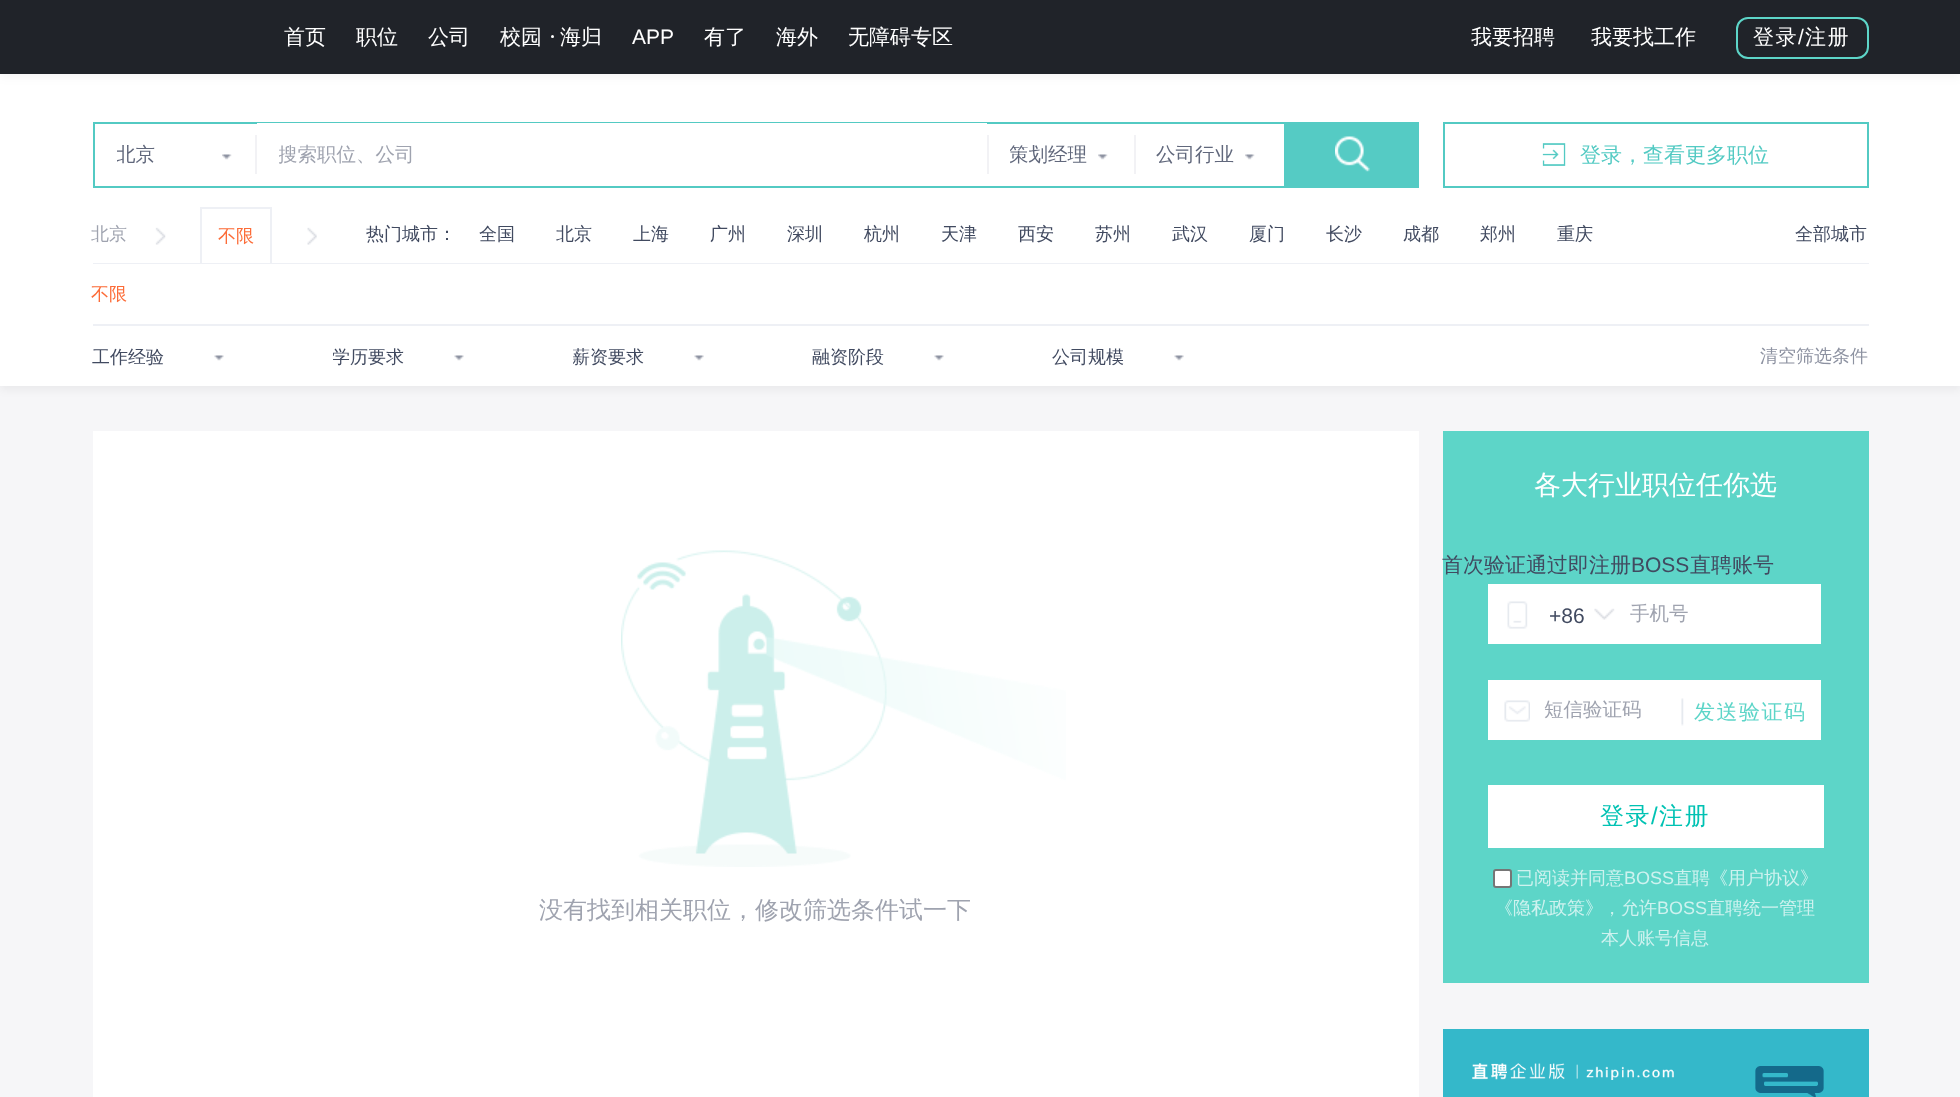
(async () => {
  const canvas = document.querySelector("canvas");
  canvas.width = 1960;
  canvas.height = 1097;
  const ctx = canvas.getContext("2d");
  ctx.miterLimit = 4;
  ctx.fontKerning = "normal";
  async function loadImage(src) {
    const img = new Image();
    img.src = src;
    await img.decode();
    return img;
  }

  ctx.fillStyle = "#f6f6f8";
  ctx.fillRect(0, 0, 1960, 1097);
  ctx.fillStyle = "rgba(6, 0, 1, 0.05)";
  ctx.filter = "blur(4.5px)";
  ctx.beginPath();
  ctx.rect(0, 78, 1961, 312);
  ctx.fill();
  ctx.filter = "none";
  ctx.fillStyle = "#ffffff";
  ctx.fillRect(0, 74, 1960, 312);
  ctx.fillStyle = "rgba(0, 0, 0, 0.06)";
  ctx.filter = "blur(6px)";
  ctx.beginPath();
  ctx.rect(0, 2, 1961, 73);
  ctx.fill();
  ctx.filter = "none";
  ctx.fillStyle = "#202329";
  ctx.fillRect(0, 0, 1960, 74);
  ctx.fillStyle = "#ffffff";
  ctx.beginPath();
  ctx.arc(552.5, 36.5, 1.5, 0, Math.PI * 2);
  ctx.fill();
  ctx.beginPath();
  ctx.roundRect(1737, 18, 131, 40, 11);
  ctx.strokeStyle = "#5dd5c8";
  ctx.lineWidth = 2;
  ctx.stroke();
  for (const [x, y, w, h, color] of [
    [93, 122, 164, 2, "#53cac3"],
    [93, 186, 164, 2, "#53cac3"],
    [93, 122, 2, 66, "#53cac3"],
  ]) {
    ctx.fillStyle = color;
    ctx.fillRect(x, y, w, h);
  }
  ctx.drawImage(await loadImage("img/1.png"), 222, 154, 10, 6);
  for (const [x, y, w, h, color] of [
    [255, 135, 2, 39, "#f2f2f5"],
    [257, 122, 730, 1, "#53cac3"],
    [987, 135, 2, 39, "#f2f2f5"],
  ]) {
    ctx.fillStyle = color;
    ctx.fillRect(x, y, w, h);
  }
  ctx.drawImage(await loadImage("img/2.png"), 1098, 154, 10, 6);
  for (const [x, y, w, h, color] of [
    [987, 122, 297, 2, "#53cac3"],
    [257, 186, 1027, 2, "#53cac3"],
    [1134, 135, 2, 39, "#f2f2f5"],
  ]) {
    ctx.fillStyle = color;
    ctx.fillRect(x, y, w, h);
  }
  ctx.drawImage(await loadImage("img/2.png"), 1245, 154, 10, 6);
  ctx.fillStyle = "#55cbc4";
  ctx.fillRect(1284, 122, 135, 66);
  ctx.drawImage(await loadImage("img/3.png"), 1335, 136, 35, 36);
  ctx.strokeStyle = "#53cac3";
  ctx.strokeRect(1444, 123, 424, 64);
  ctx.drawImage(await loadImage("img/4.png"), 1542, 143, 24, 23);
  ctx.fillStyle = "#eef0f5";
  ctx.fillRect(93, 263, 1776, 1);
  ctx.drawImage(await loadImage("img/5.png"), 155, 227, 11, 18);
  for (const [x, y, w, h, color] of [
    [200, 207, 72, 2, "#eef0f5"],
    [270, 207, 2, 56, "#eef0f5"],
    [200, 207, 2, 56, "#eef0f5"],
  ]) {
    ctx.fillStyle = color;
    ctx.fillRect(x, y, w, h);
  }
  ctx.drawImage(await loadImage("img/6.png"), 307, 227, 10, 18);
  ctx.fillRect(93, 324, 1776, 2);
  ctx.drawImage(await loadImage("img/7.png"), 214, 355, 10, 6);
  ctx.drawImage(await loadImage("img/7.png"), 454, 355, 10, 6);
  ctx.drawImage(await loadImage("img/8.png"), 694, 355, 10, 6);
  ctx.drawImage(await loadImage("img/7.png"), 934, 355, 10, 6);
  ctx.drawImage(await loadImage("img/8.png"), 1174, 355, 10, 6);
  ctx.fillStyle = "#ffffff";
  ctx.fillRect(93, 431, 1326, 666);
  ctx.drawImage(await loadImage("img/9.png"), 621, 550, 445, 317);
  ctx.fillStyle = "#5dd5c8";
  ctx.fillRect(1443, 431, 426, 552);
  ctx.fillStyle = "#ffffff";
  ctx.fillRect(1488, 584, 333, 60);
  ctx.drawImage(await loadImage("img/10.png"), 1594, 608, 21, 12);
  ctx.drawImage(await loadImage("img/11.png"), 1507, 601, 21, 28);
  ctx.fillRect(1488, 680, 333, 60);
  ctx.drawImage(await loadImage("img/12.png"), 1504, 700, 26, 22);
  ctx.drawImage(await loadImage("img/13.png"), 1681, 698, 3, 28);
  ctx.fillRect(1488, 785, 336, 63);
  ctx.beginPath();
  ctx.roundRect(1494, 870, 17, 17, 2);
  ctx.fill();
  ctx.strokeStyle = "#767676";
  ctx.stroke();
  ctx.drawImage(await loadImage("img/14.png"), 1443, 1029, 426, 68);
  ctx.font = "500 21px WenQuanYi Zen Hei";
  for (const [text, x, y] of [
    ["首页", 284, 44],
    ["职位", 356, 44],
    ["公司", 428, 44],
    ["校园", 500, 44],
    ["海归", 560, 44],
  ]) {
    ctx.fillText(text, x, y);
  }
  ctx.font = "21px Liberation Sans";
  ctx.fillText("APP", 632, 44);
  ctx.font = "500 21px WenQuanYi Zen Hei";
  for (const [text, x, y] of [
    ["有了", 704, 44],
    ["海外", 776, 44],
    ["无障碍专区", 848, 44],
    ["我要招聘", 1471, 44],
    ["我要找工作", 1591, 44],
  ]) {
    ctx.fillText(text, x, y);
  }
  ctx.letterSpacing = "1.5px";
  ctx.fillText("登录", 1753, 44);
  ctx.font = "21px Liberation Sans";
  ctx.fillText("/", 1798, 44);
  ctx.font = "500 21px WenQuanYi Zen Hei";
  ctx.fillText("注册", 1805, 44);
  ctx.save();
  ctx.beginPath();
  ctx.rect(117, 132, 102, 45);
  ctx.clip();
  ctx.letterSpacing = "0px";
  ctx.font = "500 19.5px WenQuanYi Zen Hei";
  ctx.fillStyle = "#61687c";
  ctx.fillText("北京", 116, 161);
  ctx.restore();
  ctx.save();
  ctx.beginPath();
  ctx.rect(279, 141, 705, 27);
  ctx.clip();
  ctx.letterSpacing = "0px";
  ctx.font = "500 19.5px WenQuanYi Zen Hei";
  ctx.fillStyle = "#9fa3af";
  ctx.fillText("搜索职位、公司", 278, 161);
  ctx.restore();
  ctx.save();
  ctx.beginPath();
  ctx.rect(1010, 132, 78, 45);
  ctx.clip();
  ctx.letterSpacing = "0px";
  ctx.font = "500 19.5px WenQuanYi Zen Hei";
  ctx.fillStyle = "#61687c";
  ctx.fillText("策划经理", 1009, 161);
  ctx.restore();
  ctx.letterSpacing = "0px";
  ctx.font = "500 19.5px WenQuanYi Zen Hei";
  ctx.fillStyle = "#61687c";
  ctx.fillText("公司行业", 1156, 161);
  ctx.font = "500 21px WenQuanYi Zen Hei";
  ctx.fillStyle = "#53cac3";
  ctx.fillText("登录，查看更多职位", 1580, 162);
  ctx.font = "500 18px WenQuanYi Zen Hei";
  ctx.fillStyle = "#9fa3af";
  ctx.fillText("北京", 91, 240);
  ctx.fillStyle = "#fc6c38";
  ctx.fillText("不限", 218, 242);
  ctx.fillStyle = "#414a60";
  for (const [text, x, y] of [
    ["热门城市：", 366, 240],
    ["全国", 479, 240],
    ["北京", 556, 240],
    ["上海", 633, 240],
    ["广州", 710, 240],
    ["深圳", 787, 240],
    ["杭州", 864, 240],
    ["天津", 941, 240],
    ["西安", 1018, 240],
    ["苏州", 1095, 240],
    ["武汉", 1172, 240],
    ["厦门", 1249, 240],
    ["长沙", 1326, 240],
    ["成都", 1403, 240],
    ["郑州", 1480, 240],
    ["重庆", 1557, 240],
    ["全部城市", 1795, 240],
  ]) {
    ctx.fillText(text, x, y);
  }
  ctx.fillStyle = "#fc6c38";
  ctx.fillText("不限", 91, 300);
  ctx.fillStyle = "#414a60";
  ctx.fillText("工作经验", 92, 363);
  ctx.save();
  ctx.beginPath();
  ctx.rect(333, 341, 113, 33);
  ctx.clip();
  ctx.fillText("学历要求", 332, 363);
  ctx.restore();
  ctx.save();
  ctx.beginPath();
  ctx.rect(573, 341, 113, 33);
  ctx.clip();
  ctx.fillText("薪资要求", 572, 363);
  ctx.restore();
  ctx.fillText("融资阶段", 812, 363);
  ctx.fillText("公司规模", 1052, 363);
  ctx.fillStyle = "#8d92a1";
  ctx.fillText("清空筛选条件", 1760, 362);
  ctx.font = "500 24px WenQuanYi Zen Hei";
  ctx.fillStyle = "#9fa3af";
  ctx.fillText("没有找到相关职位，修改筛选条件试一下", 539, 918);
  ctx.font = "500 27px WenQuanYi Zen Hei";
  ctx.fillStyle = "#ffffff";
  ctx.fillText("各大行业职位任你选", 1534, 494);
  ctx.font = "500 21px WenQuanYi Zen Hei";
  ctx.fillStyle = "#414a60";
  ctx.fillText("首次验证通过即注册", 1442, 572);
  ctx.font = "21px Liberation Sans";
  ctx.fillText("BOSS", 1631, 572);
  ctx.font = "500 21px WenQuanYi Zen Hei";
  ctx.fillText("直聘账号", 1690, 572);
  ctx.font = "21px Liberation Sans";
  ctx.fillText("+86", 1549, 623);
  ctx.font = "500 19.5px WenQuanYi Zen Hei";
  ctx.fillStyle = "#9fa3af";
  ctx.fillText("手机号", 1630, 620);
  ctx.fillText("短信验证码", 1544, 716);
  ctx.letterSpacing = "1.5px";
  ctx.font = "500 21px WenQuanYi Zen Hei";
  ctx.fillStyle = "#5dd5c8";
  ctx.fillText("发送验证码", 1694, 719);
  ctx.font = "500 24px WenQuanYi Zen Hei";
  ctx.fillStyle = "#00c2b3";
  ctx.fillText("登录", 1600, 824);
  ctx.font = "24px Liberation Sans";
  ctx.fillText("/", 1651, 824);
  ctx.font = "500 24px WenQuanYi Zen Hei";
  ctx.fillText("注册", 1659, 824);
  ctx.letterSpacing = "0px";
  ctx.font = "500 18px WenQuanYi Zen Hei";
  ctx.fillStyle = "#cef2ef";
  ctx.fillText("已阅读并同意", 1516, 884);
  ctx.font = "18px Liberation Sans";
  ctx.fillText("BOSS", 1624, 884);
  ctx.font = "500 18px WenQuanYi Zen Hei";
  for (const [text, x, y] of [
    ["直聘《用户协议》", 1674, 884],
    ["《隐私政策》", 1495, 914],
    ["，允许", 1603, 914],
  ]) {
    ctx.fillText(text, x, y);
  }
  ctx.font = "18px Liberation Sans";
  ctx.fillText("BOSS", 1657, 914);
  ctx.font = "500 18px WenQuanYi Zen Hei";
  ctx.fillText("直聘统一管理", 1707, 914);
  ctx.fillText("本人账号信息", 1601, 944);
})();
